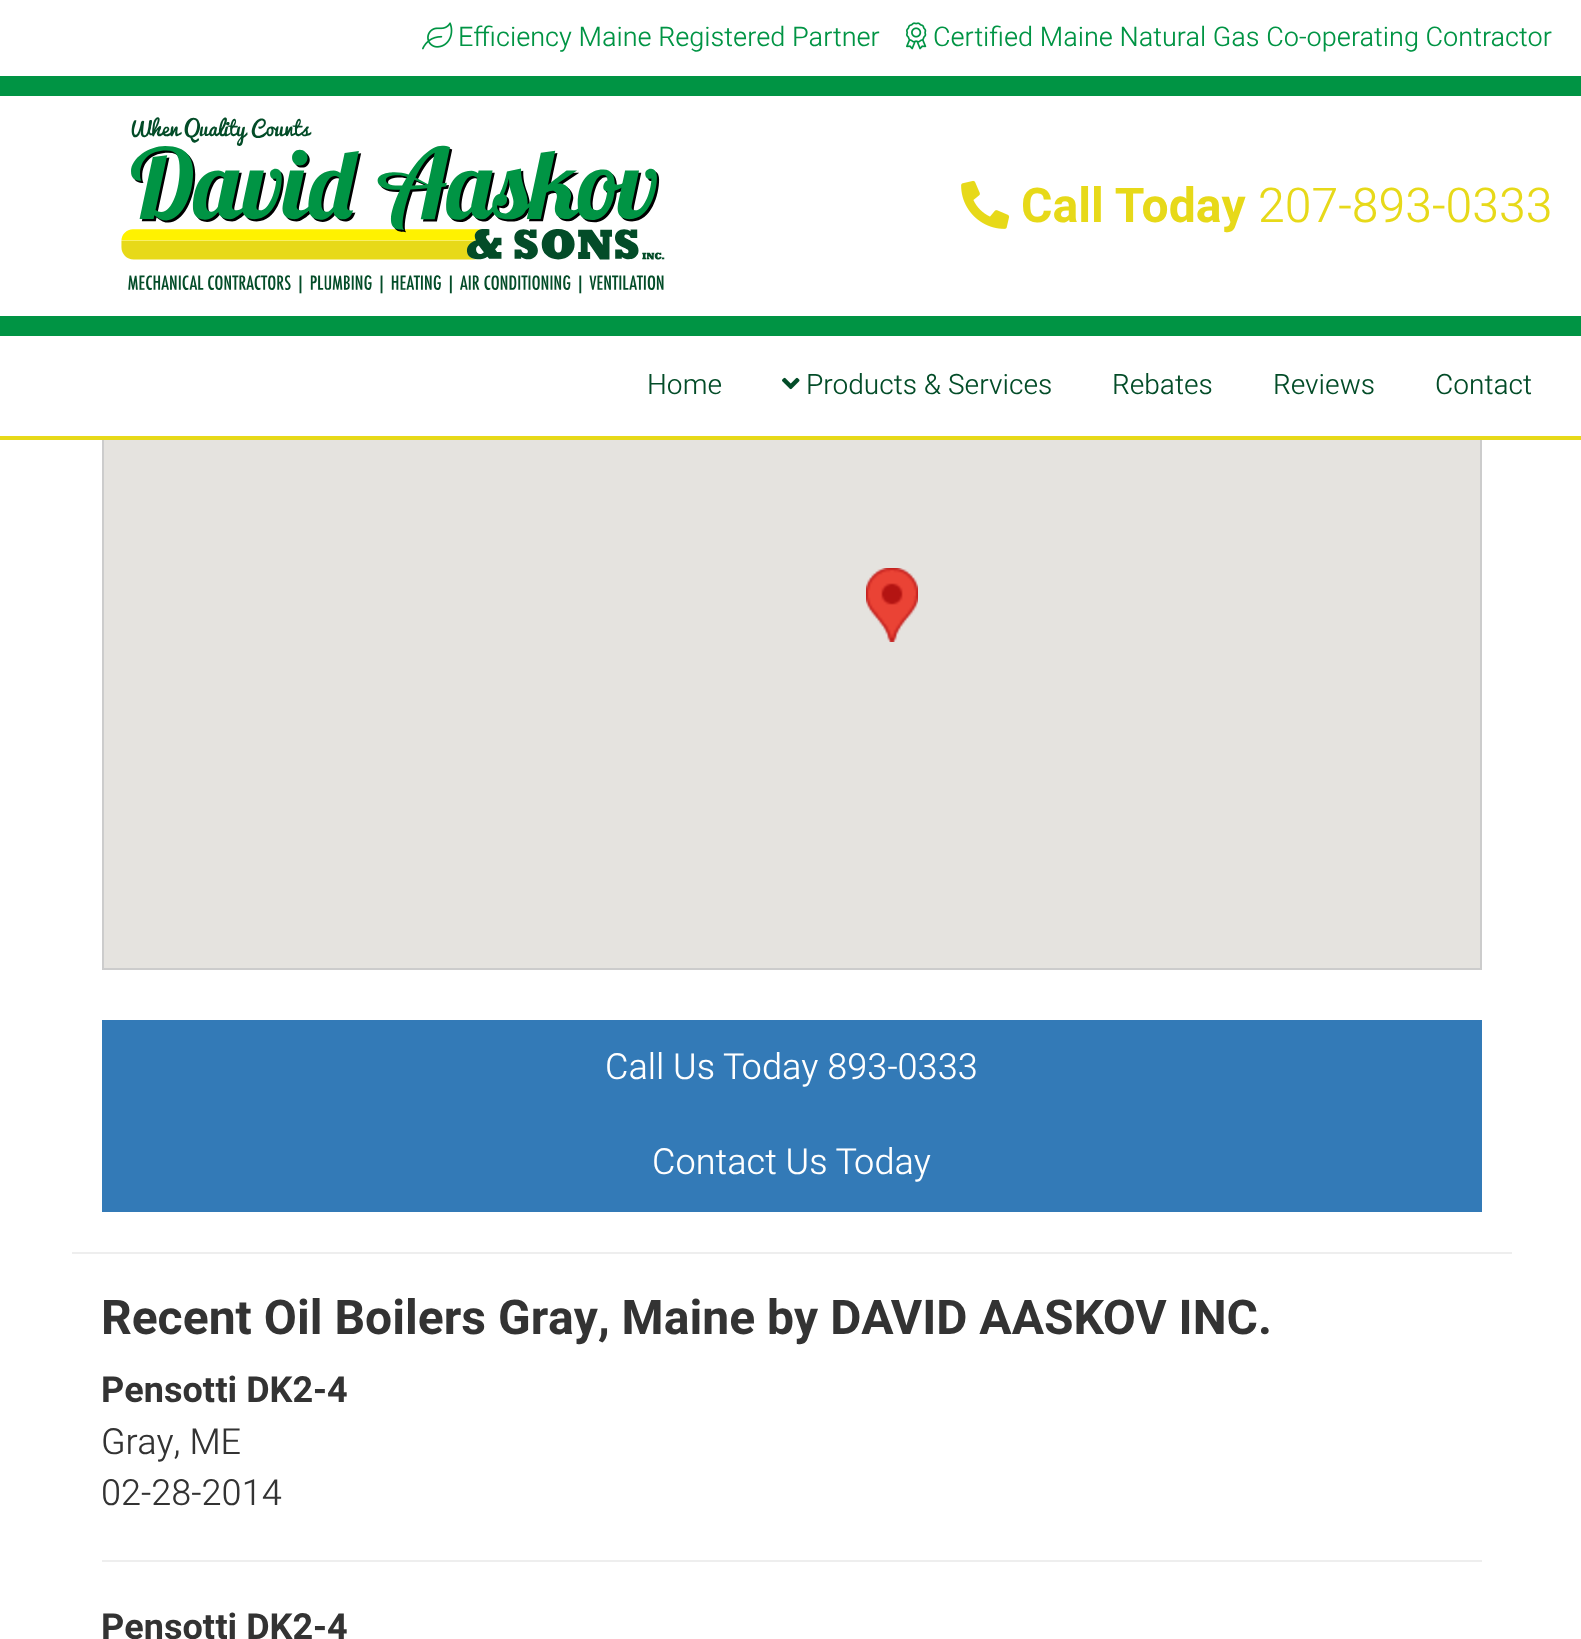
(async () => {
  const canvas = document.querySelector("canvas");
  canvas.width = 1581;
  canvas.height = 1639;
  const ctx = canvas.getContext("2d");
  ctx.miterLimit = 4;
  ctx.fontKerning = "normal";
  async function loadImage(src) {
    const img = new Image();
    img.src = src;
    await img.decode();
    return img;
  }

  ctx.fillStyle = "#ffffff";
  ctx.fillRect(0, 0, 1581, 1639);
  ctx.strokeStyle = "#cccccc";
  ctx.lineWidth = 2;
  ctx.strokeRect(103, 371, 1378, 598);
  ctx.fillRect(102, 370, 1380, 66);
  ctx.drawImage(await loadImage("img/1.png"), 422, 22, 31, 28);
  ctx.drawImage(await loadImage("img/2.png"), 906, 22, 21, 28);
  ctx.fillStyle = "#009444";
  ctx.fillRect(0, 76, 1581, 20);
  ctx.drawImage(await loadImage("img/3.png"), 121, 117, 544, 177);
  ctx.drawImage(await loadImage("img/4.png"), 961, 180, 49, 49);
  ctx.fillRect(0, 316, 1581, 20);
  ctx.fillStyle = "#e7d919";
  ctx.fillRect(0, 436, 1581, 4);
  ctx.drawImage(await loadImage("img/5.png"), 782, 377, 18, 13);
  ctx.fillStyle = "#e5e3df";
  ctx.fillRect(104, 440, 1376, 528);
  ctx.drawImage(await loadImage("img/6.png"), 866, 568, 52, 74);
  ctx.drawImage(await loadImage("img/7.png"), 866, 568, 52, 74);
  for (const [x, y, w, h, color] of [
    [102, 1020, 1380, 192, "#337ab7"],
    [72, 1252, 1440, 2, "#eeeeee"],
    [102, 1560, 1380, 2, "#eeeeee"],
  ]) {
    ctx.fillStyle = color;
    ctx.fillRect(x, y, w, h);
  }
  ctx.font = "300 27px Heebo";
  ctx.fillStyle = "#009444";
  ctx.fillText("Efficiency Maine Registered Partner", 458, 46);
  ctx.fillText("Certified Maine Natural Gas Co-operating Contractor", 933, 46);
  ctx.font = "bold 48px Heebo";
  ctx.fillStyle = "#e7d919";
  ctx.fillText("Call Today", 1021, 222);
  ctx.font = "300 48px Heebo";
  ctx.fillText("207-893-0333", 1258, 222);
  ctx.font = "300 28px Heebo";
  ctx.fillStyle = "#034c28";
  for (const [text, x, y] of [
    ["Home", 647, 394],
    ["Products & Services", 806, 394],
    ["Rebates", 1112, 394],
    ["Reviews", 1273, 394],
    ["Contact", 1435, 394],
  ]) {
    ctx.fillText(text, x, y);
  }
  ctx.font = "300 36px Heebo";
  ctx.fillStyle = "#ffffff";
  ctx.fillText("Call Us Today 893-0333", 605, 1079);
  ctx.fillText("Contact Us Today", 652, 1174);
  ctx.font = "bold 48px Heebo";
  ctx.fillStyle = "#333333";
  ctx.fillText("Recent Oil Boilers Gray, Maine by DAVID AASKOV INC.", 101, 1334);
  ctx.font = "bold 36px Heebo";
  ctx.fillText("Pensotti DK2-4", 101, 1402);
  ctx.font = "300 36px Heebo";
  ctx.fillText("Gray, ME", 101, 1454);
  ctx.fillText("02-28-2014", 101, 1505);
  ctx.font = "bold 36px Heebo";
  ctx.fillText("Pensotti DK2-4", 101, 1639);
})();
